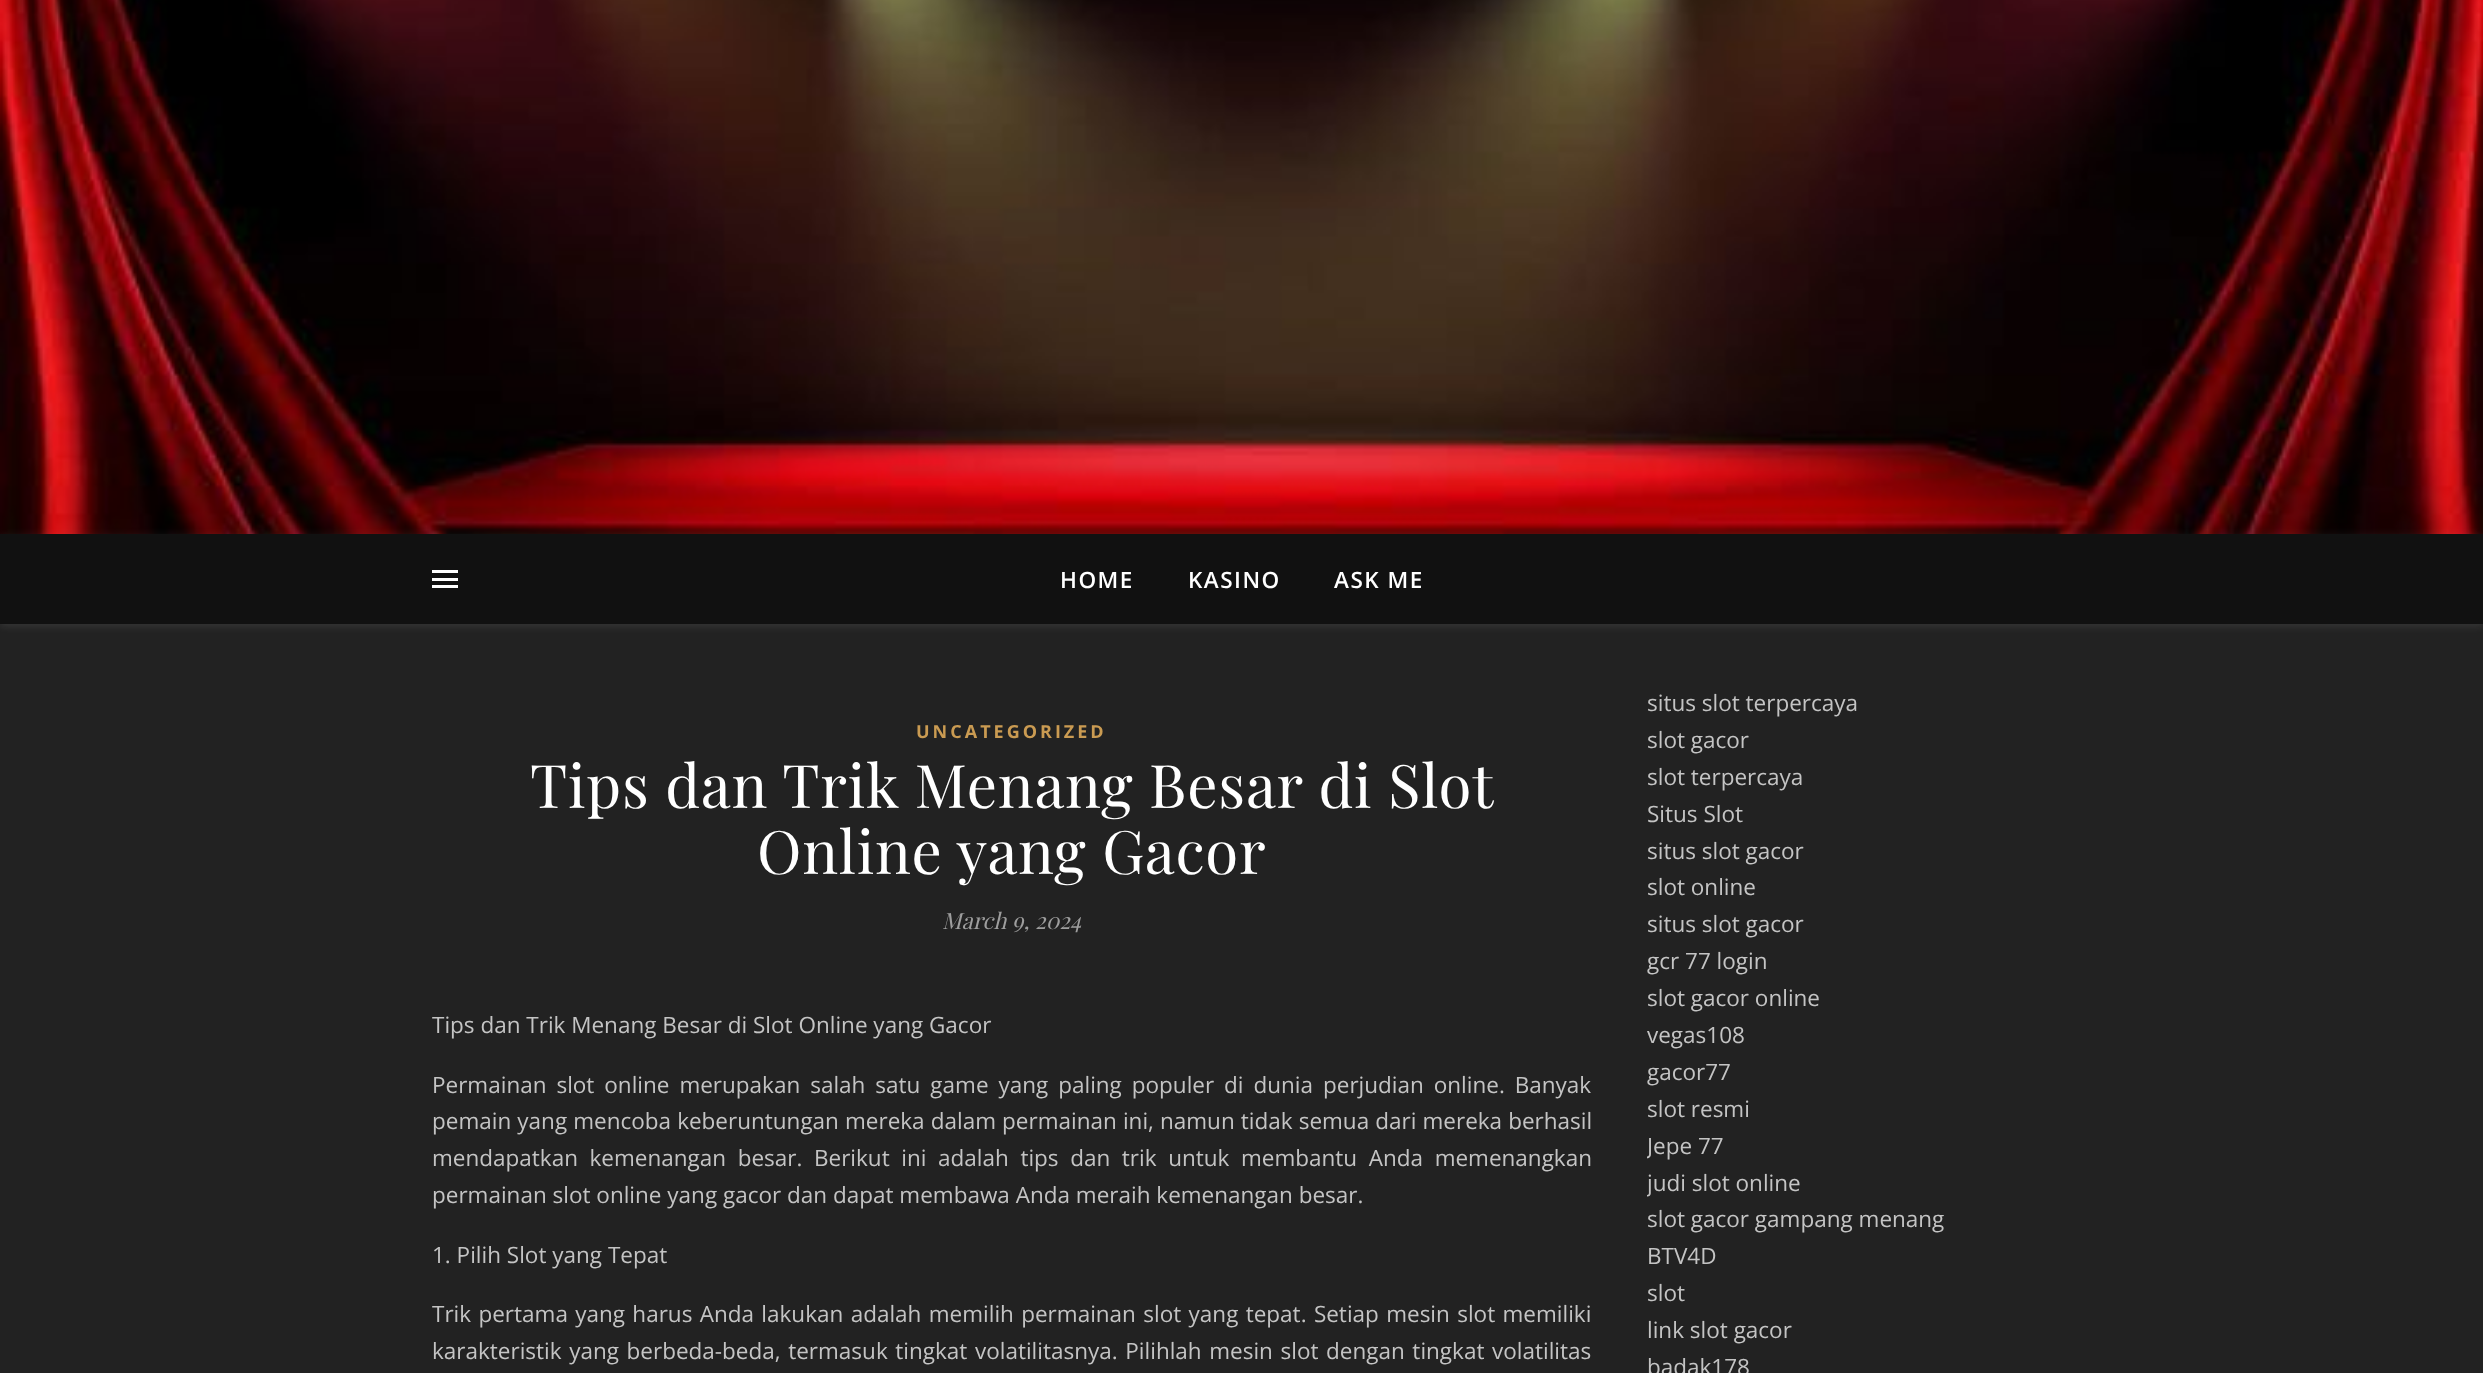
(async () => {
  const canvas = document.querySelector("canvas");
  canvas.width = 2483;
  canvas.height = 1373;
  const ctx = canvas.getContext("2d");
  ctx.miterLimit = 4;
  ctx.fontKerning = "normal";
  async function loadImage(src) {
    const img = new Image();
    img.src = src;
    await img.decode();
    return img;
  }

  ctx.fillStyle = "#222222";
  ctx.fillRect(0, 0, 2483, 1373);
  ctx.drawImage(await loadImage("img/1.png"), 0, 0, 2483, 534);
  ctx.fillStyle = "rgba(255, 255, 255, 0.1)";
  ctx.filter = "blur(4px)";
  ctx.beginPath();
  ctx.rect(0, 536, 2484, 90);
  ctx.fill();
  ctx.filter = "none";
  for (const [x, y, w, h, color] of [
    [0, 534, 2483, 90, "#111111"],
    [432, 570, 26, 3, "#ffffff"],
    [432, 578, 26, 3, "#ffffff"],
    [432, 585, 26, 3, "#ffffff"],
  ]) {
    ctx.fillStyle = color;
    ctx.fillRect(x, y, w, h);
  }
  ctx.letterSpacing = "1.5px";
  ctx.font = "600 22.5px Open Sans";
  for (const [text, x, y] of [
    ["HOME", 1060, 588],
    ["KASINO", 1188, 588],
    ["ASK ME", 1334, 588],
  ]) {
    ctx.fillText(text, x, y);
  }
  ctx.letterSpacing = "3px";
  ctx.font = "bold 18px Open Sans";
  ctx.fillStyle = "#ca9b52";
  ctx.fillText("UNCATEGORIZED", 916, 738);
  ctx.letterSpacing = "0.75px";
  ctx.font = "60px Playfair Display";
  ctx.fillStyle = "#ffffff";
  ctx.fillText("Tips dan Trik Menang Besar di Slot", 530, 808);
  ctx.fillText("Online yang Gacor", 757, 874);
  ctx.letterSpacing = "0px";
  ctx.font = "italic 22.5px Playfair Display";
  ctx.fillStyle = "#9e9e9e";
  ctx.fillText("March 9, 2024", 942, 929);
  ctx.font = "22.5px Open Sans";
  ctx.fillStyle = "#c4c4c4";
  ctx.fillText("Tips dan Trik Menang Besar di Slot Online yang Gacor", 432, 1033);
  ctx.wordSpacing = "4.1px";
  ctx.fillText("Permainan slot online merupakan salah satu game yang paling populer di dunia perjudian online. Banyak", 432, 1093);
  ctx.wordSpacing = "0.25px";
  ctx.fillText("pemain yang mencoba keberuntungan mereka dalam permainan ini, namun tidak semua dari mereka berhasil", 432, 1129);
  ctx.wordSpacing = "5.75px";
  ctx.fillText("mendapatkan kemenangan besar. Berikut ini adalah tips dan trik untuk membantu Anda memenangkan", 432, 1166);
  ctx.wordSpacing = "0px";
  ctx.fillText("permainan slot online yang gacor dan dapat membawa Anda meraih kemenangan besar.", 432, 1203);
  ctx.fillText("1. Pilih Slot yang Tepat", 432, 1263);
  ctx.wordSpacing = "1.5px";
  ctx.fillText("Trik pertama yang harus Anda lakukan adalah memilih permainan slot yang tepat. Setiap mesin slot memiliki", 432, 1322);
  ctx.wordSpacing = "1.75px";
  ctx.fillText("karakteristik yang berbeda-beda, termasuk tingkat volatilitasnya. Pilihlah mesin slot dengan tingkat volatilitas", 432, 1359);
  ctx.wordSpacing = "0px";
  for (const [text, x, y] of [
    ["situs slot terpercaya", 1647, 711],
    ["slot gacor", 1647, 748],
    ["slot terpercaya", 1647, 785],
    ["Situs Slot", 1647, 822],
    ["situs slot gacor", 1647, 859],
    ["slot online", 1647, 895],
    ["situs slot gacor", 1647, 932],
    ["gcr 77 login", 1647, 969],
    ["slot gacor online", 1647, 1006],
    ["vegas108", 1647, 1043],
    ["gacor77", 1647, 1080],
    ["slot resmi", 1647, 1117],
  ]) {
    ctx.fillText(text, x, y);
  }
  ctx.save();
  ctx.beginPath();
  ctx.rect(1647, 684, 405, 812);
  ctx.clip();
  ctx.fillText("Jepe 77", 1647, 1154);
  ctx.fillText("judi slot online", 1647, 1191);
  ctx.restore();
  for (const [text, x, y] of [
    ["slot gacor gampang menang", 1647, 1227],
    ["BTV4D", 1647, 1264],
    ["slot", 1647, 1301],
    ["link slot gacor", 1647, 1338],
    ["badak178", 1647, 1375],
  ]) {
    ctx.fillText(text, x, y);
  }
})();
